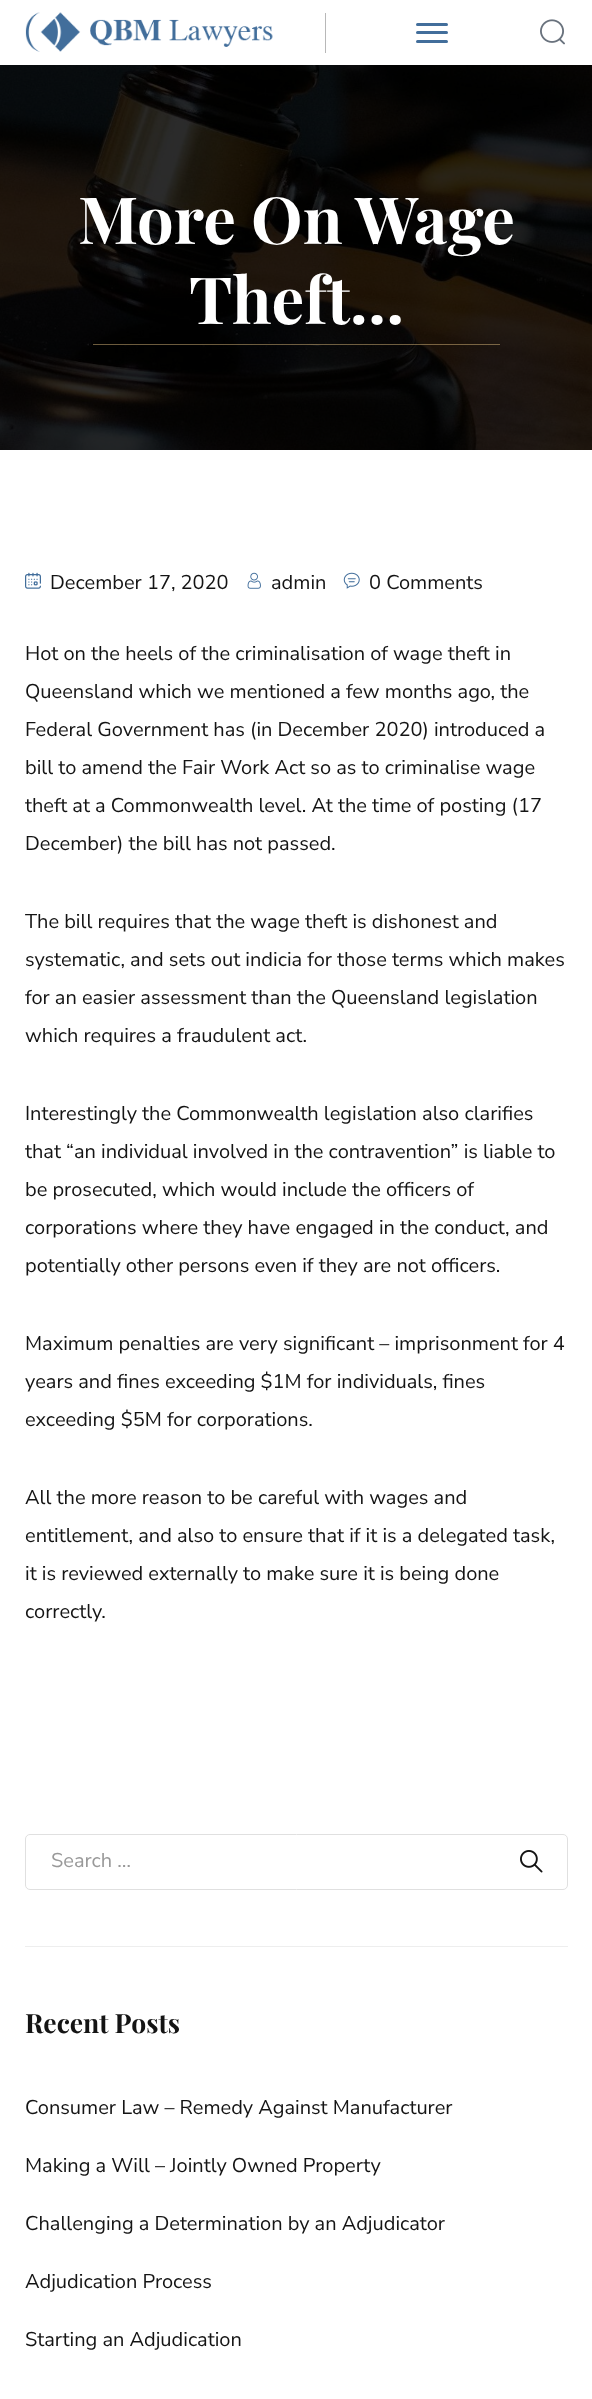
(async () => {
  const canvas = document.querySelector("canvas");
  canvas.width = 592;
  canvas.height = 2399;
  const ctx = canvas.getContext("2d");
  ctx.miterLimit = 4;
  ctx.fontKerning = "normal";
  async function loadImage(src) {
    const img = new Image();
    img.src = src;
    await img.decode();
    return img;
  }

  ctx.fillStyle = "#ffffff";
  ctx.fillRect(0, 0, 592, 2399);
  ctx.fillStyle = "#b8b8b8";
  ctx.fillRect(325, 13, 1, 40);
  ctx.drawImage(await loadImage("img/1.png"), 25, 12, 248, 40);
  ctx.fillStyle = "#426e9b";
  ctx.beginPath();
  ctx.roundRect(416, 23, 32, 3, 1.5);
  ctx.fill();
  ctx.beginPath();
  ctx.roundRect(416, 31, 32, 3, 1.5);
  ctx.fill();
  ctx.beginPath();
  ctx.roundRect(416, 40, 32, 3, 1.5);
  ctx.fill();
  ctx.drawImage(await loadImage("img/2.png"), 540, 19, 25, 26);
  ctx.drawImage(await loadImage("img/3.png"), 0, 65, 592, 385);
  ctx.fillStyle = "rgba(215, 182, 121, 0.5)";
  ctx.fillRect(93, 344, 407, 1);
  ctx.drawImage(await loadImage("img/4.png"), 25, 572, 16, 17);
  ctx.drawImage(await loadImage("img/5.png"), 247, 572, 14, 17);
  ctx.drawImage(await loadImage("img/6.png"), 343, 572, 17, 17);
  ctx.fillStyle = "#eeeeee";
  ctx.fillRect(25, 1946, 543, 1);
  ctx.beginPath();
  ctx.roundRect(25.5, 1834.5, 542, 55, 4.5);
  ctx.strokeStyle = "#e0e0e0";
  ctx.stroke();
  ctx.drawImage(await loadImage("img/7.png"), 520, 1850, 23, 23);
  ctx.font = "bold 65px Playfair Display";
  ctx.fillStyle = "#ffffff";
  ctx.fillText("More On Wage", 78, 244);
  ctx.fillText("Theft…", 189, 324);
  ctx.font = "20px Nunito Sans";
  ctx.fillStyle = "#141414";
  for (const [text, x, y] of [
    ["December 17, 2020", 50, 589],
    ["admin", 271, 589],
    ["0 Comments", 369, 589],
    ["Hot on the heels of the criminalisation of wage theft in", 25, 660],
    ["Queensland which we mentioned a few months ago, the", 25, 698],
    ["Federal Government has (in December 2020) introduced a", 25, 736],
    ["bill to amend the Fair Work Act so as to criminalise wage", 25, 774],
    ["theft at a Commonwealth level. At the time of posting (17", 25, 812],
    ["December) the bill has not passed.", 25, 850],
    ["The bill requires that the wage theft is dishonest and", 25, 928],
    ["systematic, and sets out indicia for those terms which makes", 25, 966],
    ["for an easier assessment than the Queensland legislation", 25, 1004],
    ["which requires a fraudulent act.", 25, 1042],
    ["Interestingly the Commonwealth legislation also clarifies", 25, 1120],
    ["that “an individual involved in the contravention” is liable to", 25, 1158],
    ["be prosecuted, which would include the officers of", 25, 1196],
    ["corporations where they have engaged in the conduct, and", 25, 1234],
    ["potentially other persons even if they are not officers.", 25, 1272],
    ["Maximum penalties are very significant – imprisonment for 4", 25, 1350],
    ["years and fines exceeding $1M for individuals, fines", 25, 1388],
    ["exceeding $5M for corporations.", 25, 1426],
    ["All the more reason to be careful with wages and", 25, 1504],
    ["entitlement, and also to ensure that if it is a delegated task,", 25, 1542],
    ["it is reviewed externally to make sure it is being done", 25, 1580],
    ["correctly.", 25, 1618],
  ]) {
    ctx.fillText(text, x, y);
  }
  ctx.fillStyle = "#999999";
  ctx.fillText("Search …", 51, 1867);
  ctx.font = "bold 26.5px Playfair Display";
  ctx.fillStyle = "#141414";
  ctx.fillText("Recent Posts", 25, 2033);
  ctx.font = "20px Nunito Sans";
  for (const [text, x, y] of [
    ["Consumer Law – Remedy Against Manufacturer", 25, 2114],
    ["Making a Will – Jointly Owned Property", 25, 2172],
    ["Challenging a Determination by an Adjudicator", 25, 2230],
    ["Adjudication Process", 25, 2288],
    ["Starting an Adjudication", 25, 2346],
  ]) {
    ctx.fillText(text, x, y);
  }
})();
